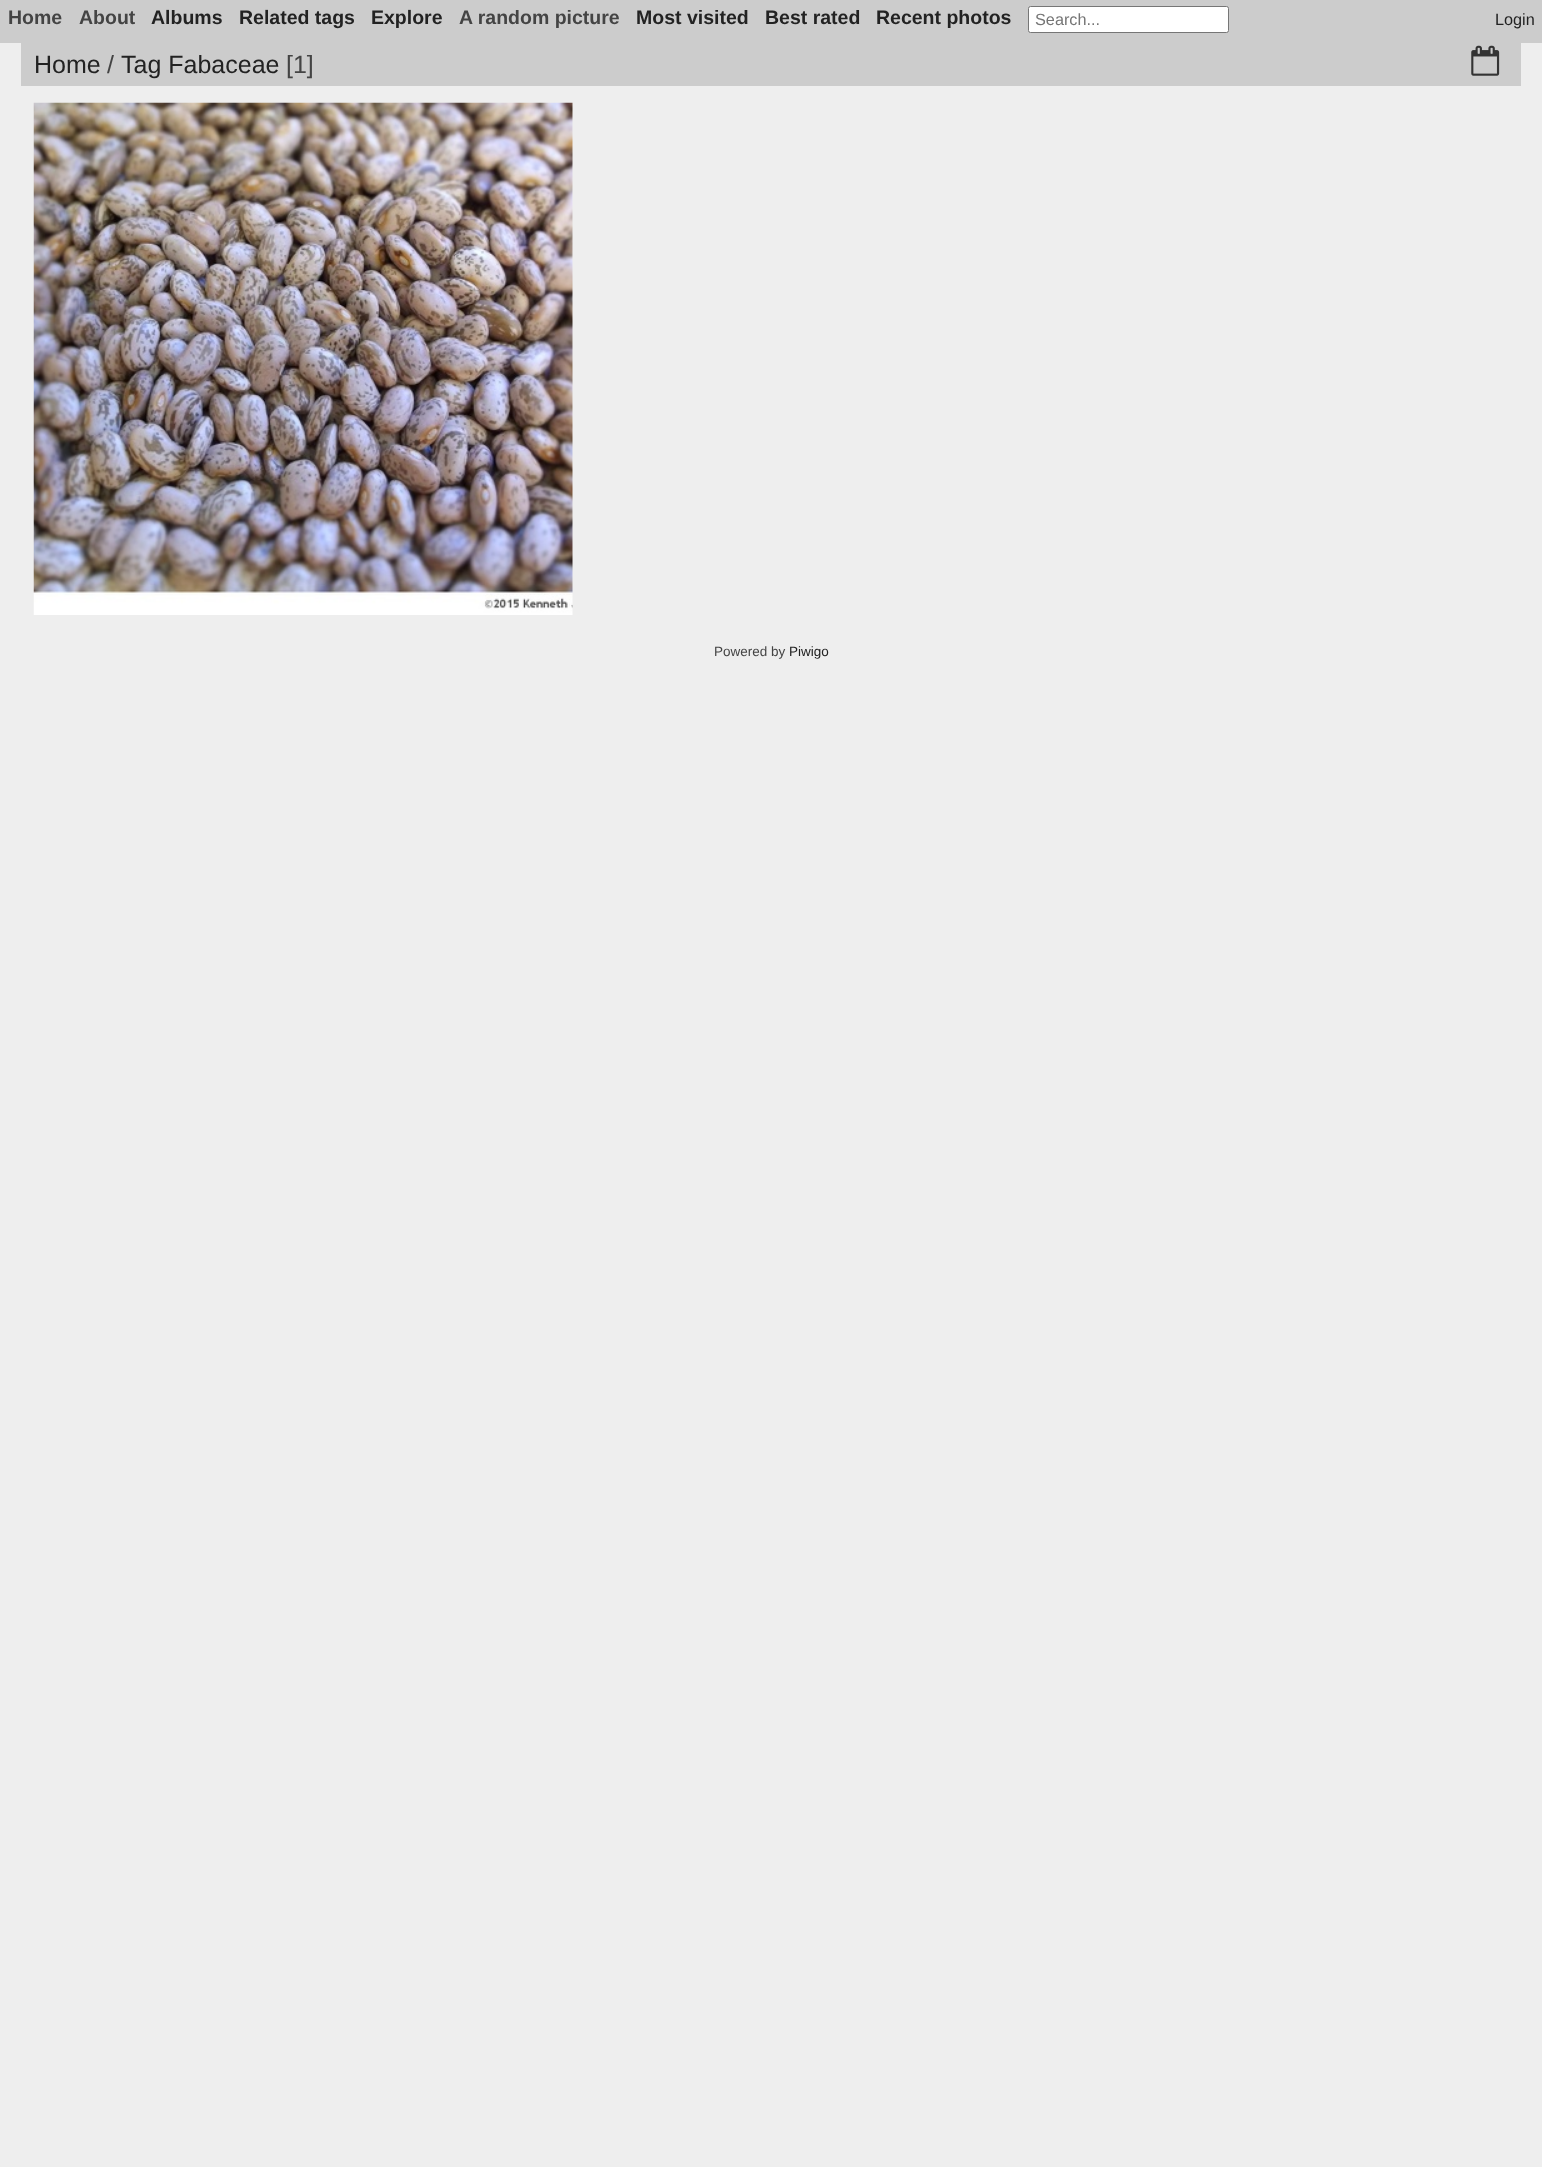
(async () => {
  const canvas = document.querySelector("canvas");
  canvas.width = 1542;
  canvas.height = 2167;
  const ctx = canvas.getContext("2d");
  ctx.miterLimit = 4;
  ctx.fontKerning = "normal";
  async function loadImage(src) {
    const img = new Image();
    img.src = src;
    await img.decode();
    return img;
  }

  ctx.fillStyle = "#eeeeee";
  ctx.fillRect(0, 0, 1542, 2167);
  ctx.fillStyle = "#cccccc";
  ctx.fillRect(0, 0, 1542, 43);
  ctx.fillStyle = "#ffffff";
  ctx.beginPath();
  ctx.roundRect(1028.5, 6.5, 200, 26, 2);
  ctx.fill();
  ctx.strokeStyle = "#767676";
  ctx.stroke();
  ctx.fillStyle = "#cccccc";
  ctx.fillRect(21, 43, 1500, 43);
  ctx.drawImage(await loadImage("img/1.png"), 1471, 45, 29, 31);
  ctx.drawImage(await loadImage("img/2.png"), 33, 102, 540, 513);
  ctx.font = "bold 19.5px Liberation Sans";
  ctx.fillStyle = "#444444";
  ctx.fillText("Home", 8, 24);
  ctx.fillText("About", 79, 24);
  ctx.fillStyle = "#222222";
  for (const [text, x, y] of [
    ["Albums", 151, 24],
    ["Related tags", 239, 24],
    ["Explore", 371, 24],
  ]) {
    ctx.fillText(text, x, y);
  }
  ctx.fillStyle = "#444444";
  ctx.fillText("A random picture", 459, 24);
  ctx.fillStyle = "#222222";
  for (const [text, x, y] of [
    ["Most visited", 636, 24],
    ["Best rated", 765, 24],
    ["Recent photos", 876, 24],
  ]) {
    ctx.fillText(text, x, y);
  }
  ctx.font = "16.25px Liberation Sans";
  ctx.fillStyle = "#757575";
  ctx.fillText("Search...", 1035, 25);
  ctx.fillStyle = "#222222";
  ctx.fillText("Login", 1495, 25);
  ctx.font = "25px Liberation Sans";
  ctx.fillText("Home", 34, 73);
  ctx.fillStyle = "#444444";
  ctx.fillText("/", 107, 73);
  ctx.fillStyle = "#222222";
  ctx.fillText("Tag Fabaceae", 121, 73);
  ctx.fillStyle = "#444444";
  ctx.fillText("[1]", 286, 73);
  ctx.font = "13.5px Liberation Sans";
  ctx.fillText("Powered by", 714, 656);
  ctx.fillStyle = "#222222";
  ctx.fillText("Piwigo", 789, 656);
})();
